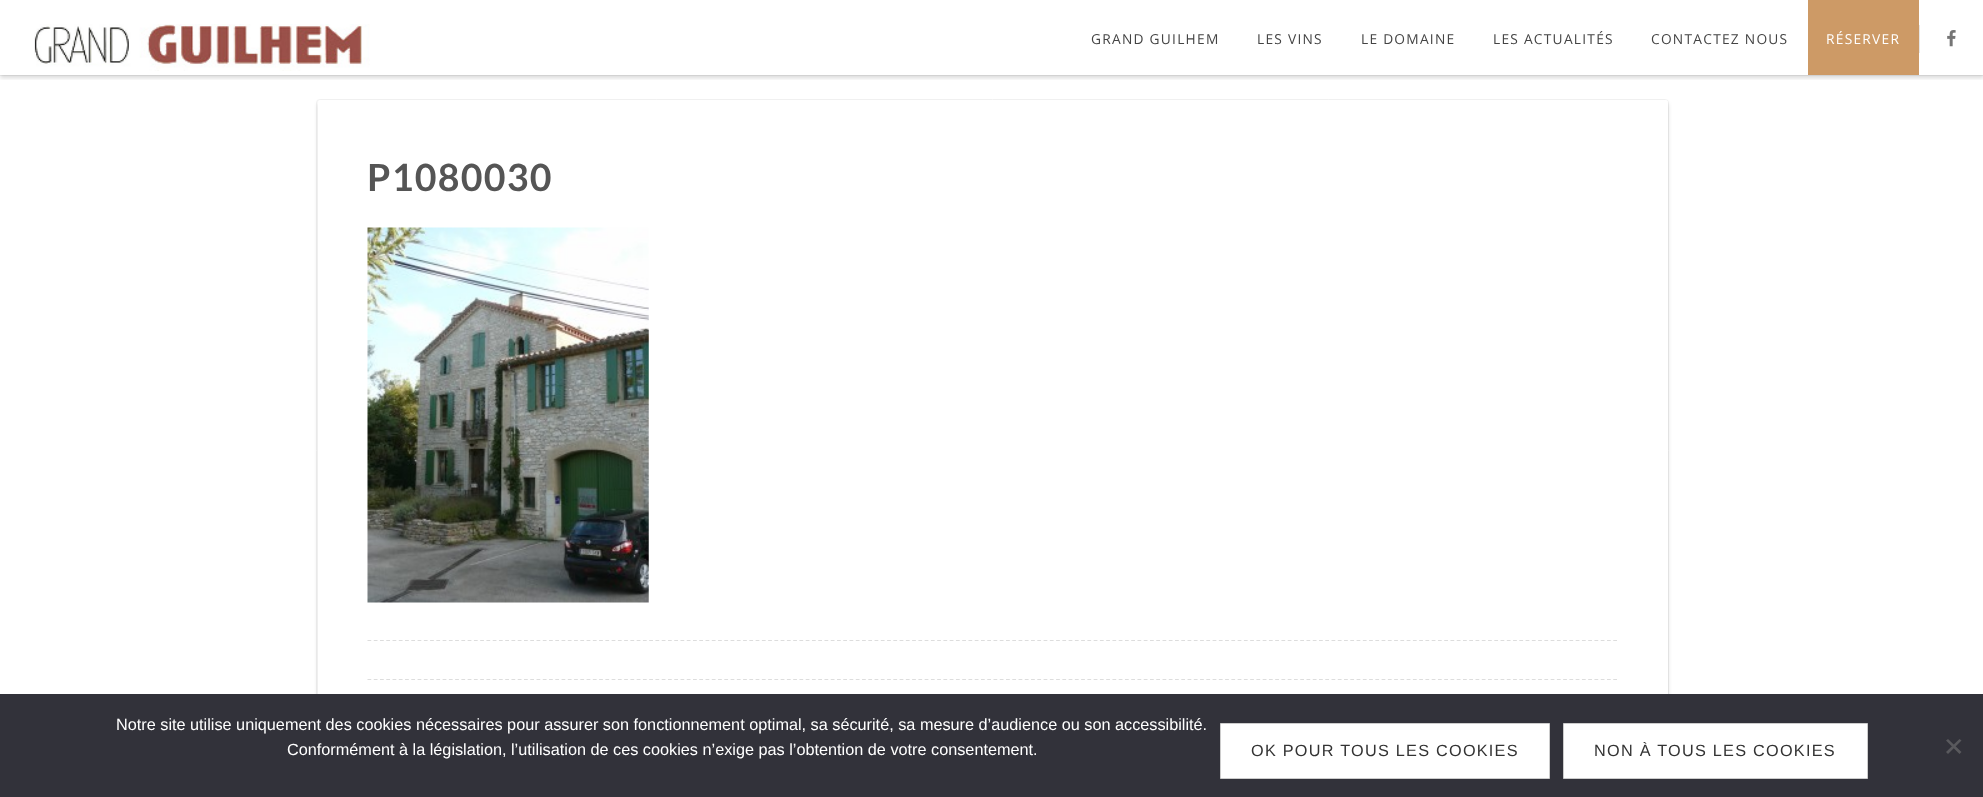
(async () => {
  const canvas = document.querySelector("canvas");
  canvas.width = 1983;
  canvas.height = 797;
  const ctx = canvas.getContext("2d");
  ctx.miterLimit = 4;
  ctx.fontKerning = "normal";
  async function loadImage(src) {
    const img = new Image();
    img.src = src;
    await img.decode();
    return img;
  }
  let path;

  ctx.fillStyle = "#ffffff";
  ctx.fillRect(0, 0, 1983, 797);
  ctx.strokeStyle = "#f2f2f2";
  ctx.strokeRect(-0.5, -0.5, 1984, 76);
  ctx.save();
  ctx.beginPath();
  ctx.rect(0, 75, 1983, 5);
  ctx.clip();
  ctx.fillStyle = "rgba(0, 0, 0, 0.15)";
  ctx.filter = "blur(2px)";
  ctx.beginPath();
  ctx.rect(0, 3, 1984, 75);
  ctx.fill();
  ctx.filter = "none";
  ctx.restore();
  ctx.drawImage(await loadImage("img/1.png"), 34, 24, 336, 47);
  ctx.fillStyle = "#cd9a66";
  ctx.fillRect(1808, 0, 111, 75);
  ctx.fillStyle = "#e6e6e6";
  ctx.fillRect(1919, 25, 1, 28);
  ctx.drawImage(await loadImage("img/2.png"), 1947, 30, 9, 17);
  ctx.beginPath();
  ctx.roundRect(316.5, 99.5, 1352, 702, 3.5);
  ctx.stroke();
  ctx.fillStyle = "rgba(0, 0, 0, 0.15)";
  ctx.filter = "blur(2px)";
  ctx.beginPath();
  ctx.roundRect(318, 103, 1350, 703, 2.5);
  ctx.fill();
  ctx.filter = "none";
  ctx.fillStyle = "#ffffff";
  ctx.beginPath();
  ctx.roundRect(318, 100, 1350, 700, 2.5);
  ctx.fill();
  ctx.drawImage(await loadImage("img/3.png"), 367, 227, 282, 376);
  path = new Path2D("M367.5 640.5H1617.5");
  ctx.strokeStyle = "#dddddd";
  ctx.lineWidth = 1.2;
  ctx.setLineDash([3.75, 2.51]);
  ctx.stroke(path);
  path = new Path2D("M367.5 679.5H1617.5");
  ctx.stroke(path);
  ctx.fillStyle = "#32323a";
  ctx.fillRect(0, 694, 1983, 103);
  ctx.fillStyle = "#ffffff";
  ctx.beginPath();
  ctx.rect(1220.5, 723.5, 329, 55);
  ctx.fill();
  ctx.strokeStyle = "#cccccc";
  ctx.lineWidth = 1;
  ctx.setLineDash([]);
  ctx.stroke();
  ctx.beginPath();
  ctx.rect(1563.5, 723.5, 304, 55);
  ctx.fill();
  ctx.stroke();
  ctx.fillStyle = "#59595d";
  path = new Path2D("M1959.5 739L1961.5 740.5L1948 754L1946 752Z");
  ctx.fill(path);
  path = new Path2D("M1946 740.5L1948 739L1961.5 752L1959.5 754Z");
  ctx.fill(path);
  ctx.letterSpacing = "1.25px";
  ctx.font = "13.75px Open Sans";
  ctx.fillStyle = "#444444";
  for (const [text, x, y] of [
    ["GRAND GUILHEM", 1091, 44],
    ["LES VINS", 1257, 44],
    ["LE DOMAINE", 1361, 44],
    ["LES ACTUALITÉS", 1493, 44],
    ["CONTACTEZ NOUS", 1651, 44],
  ]) {
    ctx.fillText(text, x, y);
  }
  ctx.fillStyle = "#ffffff";
  ctx.fillText("RÉSERVER", 1826, 44);
  ctx.font = "bold 37.5px Lato";
  ctx.fillStyle = "#555555";
  ctx.fillText("P1080030", 367, 191);
  ctx.letterSpacing = "0px";
  ctx.font = "16.25px Liberation Sans";
  ctx.fillStyle = "#ffffff";
  ctx.fillText("Notre site utilise uniquement des cookies nécessaires pour assurer son fonctionnement optimal, sa sécurité, sa mesure d’audience ou son accessibilité.", 116, 730);
  ctx.fillText("Conformément à la législation, l’utilisation de ces cookies n’exige pas l’obtention de votre consentement.", 287, 755);
  ctx.letterSpacing = "1.25px";
  ctx.fillStyle = "#333333";
  ctx.fillText("OK POUR TOUS LES COOKIES", 1251, 756);
  ctx.fillText("NON À TOUS LES COOKIES", 1594, 756);
})();
